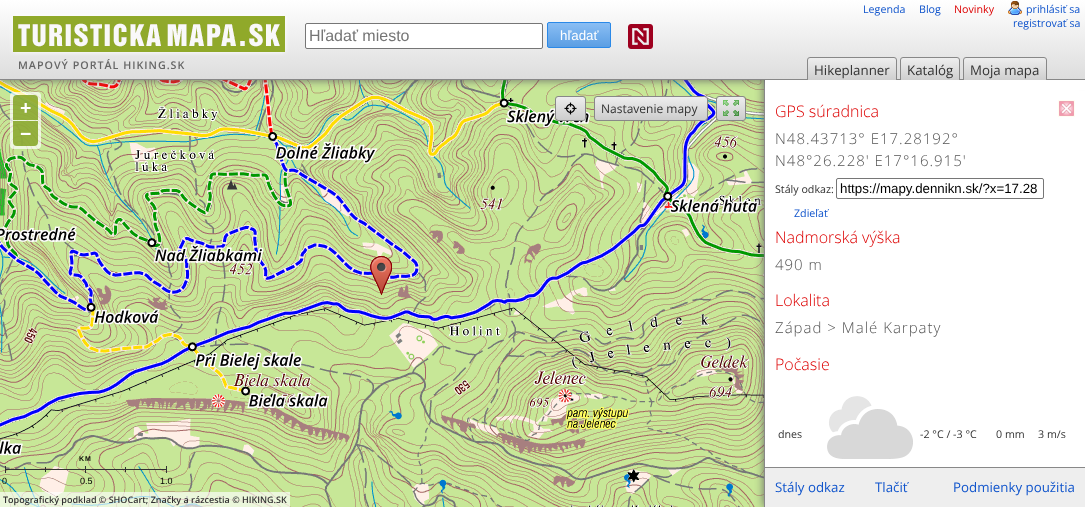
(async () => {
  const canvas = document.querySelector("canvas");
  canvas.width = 1085;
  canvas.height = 507;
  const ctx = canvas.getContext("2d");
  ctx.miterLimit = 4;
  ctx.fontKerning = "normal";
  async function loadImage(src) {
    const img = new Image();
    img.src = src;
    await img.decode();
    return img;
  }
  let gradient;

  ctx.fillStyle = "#ffffff";
  ctx.fillRect(0, 0, 1085, 507);
  ctx.drawImage(await loadImage("img/4.png"), 0, 80, 249, 97);
  ctx.drawImage(await loadImage("img/5.png"), 249, 80, 256, 97);
  ctx.drawImage(await loadImage("img/6.png"), 505, 80, 256, 97);
  ctx.drawImage(await loadImage("img/7.png"), 761, 80, 3, 97);
  ctx.drawImage(await loadImage("img/16.png"), 0, 80, 249, 97);
  ctx.drawImage(await loadImage("img/17.png"), 249, 80, 256, 97);
  ctx.drawImage(await loadImage("img/18.png"), 505, 80, 211, 97);
  ctx.fillStyle = "rgba(255, 255, 255, 0.7)";
  ctx.beginPath();
  ctx.roundRect(10, 92, 31, 57, 4);
  ctx.fill();
  ctx.fillStyle = "rgba(124, 158, 21, 0.8)";
  ctx.beginPath();
  ctx.roundRect(13, 95, 25, 25, [4, 4, 0, 0]);
  ctx.fill();
  ctx.drawImage(await loadImage("img/10.png"), 505, 177, 256, 256);
  ctx.drawImage(await loadImage("img/11.png"), 761, 177, 3, 256);
  ctx.drawImage(await loadImage("img/14.png"), 505, 433, 256, 74);
  ctx.drawImage(await loadImage("img/15.png"), 761, 433, 3, 74);
  ctx.drawImage(await loadImage("img/21.png"), 505, 177, 256, 128);
  ctx.drawImage(await loadImage("img/22.png"), 761, 253, 3, 23);
  ctx.save();
  ctx.beginPath();
  ctx.rect(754, 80, 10, 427);
  ctx.clip();
  ctx.fillStyle = "#666666";
  ctx.filter = "blur(5px)";
  ctx.beginPath();
  ctx.rect(764, 80, 321, 427);
  ctx.fill();
  ctx.filter = "none";
  ctx.restore();
  ctx.fillStyle = "#888888";
  ctx.fillRect(764, 80, 1, 427);
  ctx.fillStyle = "#666666";
  ctx.filter = "blur(5px)";
  ctx.beginPath();
  ctx.rect(0, 0, 1085, 80);
  ctx.fill();
  ctx.filter = "none";
  gradient = ctx.createLinearGradient(0, 0, 0, 79);
  gradient.addColorStop(0, "#ffffff");
  gradient.addColorStop(1, "#dddddd");
  ctx.fillStyle = gradient;
  ctx.fillRect(0, 0, 1085, 79);
  ctx.fillStyle = "#888888";
  ctx.fillRect(0, 79, 1085, 1);
  ctx.drawImage(await loadImage("img/1.png"), 1008, 1, 14, 14);
  ctx.fillStyle = "#ffffff";
  ctx.beginPath();
  ctx.roundRect(305.5, 23.5, 237, 25, 1.5);
  ctx.fill();
  ctx.strokeStyle = "#767676";
  ctx.stroke();
  ctx.save();
  ctx.beginPath();
  ctx.roundRect(547, 22, 64, 26, 2);
  ctx.clip();
  gradient = ctx.createLinearGradient(548, 23, 548, 47);
  gradient.addColorStop(0, "#8abef4");
  gradient.addColorStop(1, "#5b9ee3");
  ctx.fillStyle = gradient;
  ctx.fillRect(547, 23, 64, 24);
  ctx.restore();
  ctx.beginPath();
  ctx.roundRect(547.5, 22.5, 63, 25, 1.5);
  ctx.strokeStyle = "#2a89e8";
  ctx.stroke();
  ctx.drawImage(await loadImage("img/2.png"), 628, 24, 25, 25);
  ctx.filter = "blur(2.5px)";
  ctx.beginPath();
  ctx.rect(13, 16, 272, 36);
  ctx.fill();
  ctx.filter = "none";
  ctx.drawImage(await loadImage("img/3.png"), 13, 16, 272, 36);
  gradient = ctx.createLinearGradient(808, 58, 808, 82);
  gradient.addColorStop(0, "#eeeeee");
  gradient.addColorStop(1, "#cccccc");
  ctx.fillStyle = gradient;
  ctx.beginPath();
  ctx.roundRect(808, 58, 88, 24, 2);
  ctx.fill();
  ctx.beginPath();
  ctx.roundRect(807.5, 57.5, 89, 25, 2.5);
  ctx.strokeStyle = "#888888";
  ctx.stroke();
  gradient = ctx.createLinearGradient(901, 58, 901, 82);
  gradient.addColorStop(0, "#eeeeee");
  gradient.addColorStop(1, "#cccccc");
  ctx.fillStyle = gradient;
  ctx.beginPath();
  ctx.roundRect(901, 58, 58, 24, 2);
  ctx.fill();
  ctx.beginPath();
  ctx.roundRect(900.5, 57.5, 59, 25, 2.5);
  ctx.stroke();
  gradient = ctx.createLinearGradient(964, 58, 964, 82);
  gradient.addColorStop(0, "#eeeeee");
  gradient.addColorStop(1, "#cccccc");
  ctx.fillStyle = gradient;
  ctx.beginPath();
  ctx.roundRect(964, 58, 82, 24, 2);
  ctx.fill();
  ctx.beginPath();
  ctx.roundRect(963.5, 57.5, 83, 25, 2.5);
  ctx.stroke();
  ctx.fillStyle = "#ffffff";
  ctx.fillRect(765, 80, 320, 10);
  ctx.drawImage(await loadImage("img/8.png"), 0, 177, 249, 256);
  ctx.drawImage(await loadImage("img/9.png"), 249, 177, 256, 256);
  ctx.drawImage(await loadImage("img/12.png"), 0, 433, 249, 74);
  ctx.drawImage(await loadImage("img/13.png"), 249, 433, 256, 74);
  ctx.drawImage(await loadImage("img/19.png"), 0, 177, 249, 251);
  ctx.drawImage(await loadImage("img/20.png"), 249, 177, 256, 232);
  ctx.drawImage(await loadImage("img/23.png"), 0, 440, 23, 16);
  ctx.drawImage(await loadImage("img/24.png"), 370, 256, 22, 39);
  ctx.drawImage(await loadImage("img/25.png"), 370, 256, 22, 39);
  ctx.fillStyle = "rgba(124, 158, 21, 0.8)";
  ctx.beginPath();
  ctx.roundRect(13, 121, 25, 25, [0, 0, 4, 4]);
  ctx.fill();
  for (const [x, y, w, h, color] of [
    [5, 466, 1, 7, "#333333"],
    [45, 467, 1, 5, "#333333"],
    [85, 466, 1, 7, "#333333"],
    [86, 469, 80, 1, "#333333"],
    [125, 467, 1, 5, "#333333"],
    [166, 466, 1, 7, "#333333"],
    [5, 469, 40, 1, "#333333"],
    [45, 469, 40, 1, "#333333"],
    [0, 492, 290, 15, "rgba(255, 255, 255, 0.65)"],
  ]) {
    ctx.fillStyle = color;
    ctx.fillRect(x, y, w, h);
  }
  gradient = ctx.createLinearGradient(556, 97, 556, 120);
  gradient.addColorStop(0, "#eeeeee");
  gradient.addColorStop(1, "#cccccc");
  ctx.fillStyle = gradient;
  ctx.beginPath();
  ctx.roundRect(556, 97, 29, 23, 2);
  ctx.fill();
  ctx.drawImage(await loadImage("img/26.png"), 564, 102, 13, 13);
  ctx.beginPath();
  ctx.roundRect(555.5, 96.5, 30, 24, 2.5);
  ctx.stroke();
  gradient = ctx.createLinearGradient(595, 97, 595, 120);
  gradient.addColorStop(0, "#eeeeee");
  gradient.addColorStop(1, "#cccccc");
  ctx.fillStyle = gradient;
  ctx.beginPath();
  ctx.roundRect(595, 97, 112, 23, 2);
  ctx.fill();
  ctx.beginPath();
  ctx.roundRect(594.5, 96.5, 113, 24, 2.5);
  ctx.stroke();
  gradient = ctx.createLinearGradient(717, 97, 717, 120);
  gradient.addColorStop(0, "#eeeeee");
  gradient.addColorStop(1, "#cccccc");
  ctx.fillStyle = gradient;
  ctx.beginPath();
  ctx.roundRect(717, 97, 28, 23, 2);
  ctx.fill();
  ctx.drawImage(await loadImage("img/27.png"), 723, 100, 16, 16);
  ctx.beginPath();
  ctx.roundRect(716.5, 96.5, 29, 24, 2.5);
  ctx.stroke();
  ctx.beginPath();
  ctx.roundRect(836.5, 178.5, 207, 20, 1.5);
  ctx.strokeStyle = "#767676";
  ctx.stroke();
  ctx.drawImage(await loadImage("img/28.png"), 827, 396, 86, 63);
  ctx.drawImage(await loadImage("img/29.png"), 1058, 100, 17, 17);
  ctx.fillStyle = "#eeeeee";
  ctx.fillRect(765, 468, 320, 39);
  ctx.fillStyle = "#888888";
  ctx.fillRect(765, 467, 320, 1);
  ctx.font = "10.7px Open Sans";
  ctx.fillStyle = "#1155cc";
  ctx.fillText("Legenda", 863, 13);
  ctx.fillText("Blog", 919, 13);
  ctx.fillStyle = "#dd0000";
  ctx.fillText("Novinky", 954, 13);
  ctx.fillStyle = "#1155cc";
  ctx.fillText("prihlásiť sa", 1026, 13);
  ctx.fillText("registrovať sa", 1013, 27);
  ctx.font = "16px Liberation Sans";
  ctx.fillStyle = "#757575";
  ctx.fillText("Hľadať miesto", 309, 41);
  ctx.font = "13.3px Liberation Sans";
  ctx.fillStyle = "#ffffff";
  ctx.fillText("hľadať", 560, 40);
  ctx.letterSpacing = "1px";
  ctx.font = "600 10.7px Open Sans";
  ctx.fillStyle = "#666666";
  ctx.fillText("MAPOVÝ PORTÁL HIKING.SK", 18, 69);
  ctx.letterSpacing = "0px";
  ctx.font = "13.3px Open Sans";
  ctx.fillStyle = "#333333";
  for (const [text, x, y] of [
    ["Hikeplanner", 814, 75],
    ["Katalóg", 907, 75],
    ["Moja mapa", 970, 75],
  ]) {
    ctx.fillText(text, x, y);
  }
  ctx.font = "bold 20px Open Sans";
  ctx.fillStyle = "#ffffff";
  ctx.fillText("+", 20, 115);
  ctx.fillText("−", 20, 141);
  ctx.letterSpacing = "1px";
  ctx.font = "bold 7px Liberation Sans";
  ctx.fillStyle = "#000000";
  ctx.fillText("KM", 79, 461);
  ctx.letterSpacing = "0px";
  ctx.font = "9px Liberation Sans";
  for (const [text, x, y] of [
    ["0", 2, 484],
    ["0.5", 80, 484],
    ["1.0", 160, 484],
  ]) {
    ctx.fillText(text, x, y);
  }
  ctx.font = "600 9px Open Sans";
  ctx.fillStyle = "#333333";
  ctx.fillText("Topografický podklad © SHOCart; Značky a rázcestia © HIKING.SK", 3, 503);
  ctx.font = "12px Open Sans";
  ctx.fillText("Nastavenie mapy", 601, 113);
  ctx.font = "300 16px Open Sans";
  ctx.fillStyle = "#dd0000";
  ctx.fillText("GPS súradnica", 775, 117);
  ctx.letterSpacing = "1px";
  ctx.font = "300 15px Open Sans";
  ctx.fillStyle = "#555555";
  ctx.fillText("N48.43713° E17.28192°", 775, 144);
  ctx.fillText("N48°26.228' E17°16.915'", 775, 166);
  ctx.letterSpacing = "0px";
  ctx.font = "10.7px Open Sans";
  ctx.fillStyle = "#333333";
  ctx.fillText("Stály odkaz:", 775, 193);
  ctx.font = "13.3px Liberation Sans";
  ctx.fillStyle = "#000000";
  ctx.fillText("https://mapy.dennikn.sk/?x=17.28", 840, 193);
  ctx.font = "10.7px Open Sans";
  ctx.fillStyle = "#1155cc";
  ctx.fillText("Zdieľať", 794, 217);
  ctx.font = "300 16px Open Sans";
  ctx.fillStyle = "#dd0000";
  ctx.fillText("Nadmorská výška", 775, 243);
  ctx.letterSpacing = "1px";
  ctx.font = "300 15px Open Sans";
  ctx.fillStyle = "#555555";
  ctx.fillText("490 m", 775, 270);
  ctx.letterSpacing = "0px";
  ctx.font = "300 16px Open Sans";
  ctx.fillStyle = "#dd0000";
  ctx.fillText("Lokalita", 775, 306);
  ctx.letterSpacing = "1px";
  ctx.font = "300 15px Open Sans";
  ctx.fillStyle = "#555555";
  ctx.fillText("Západ > Malé Karpaty", 775, 333);
  ctx.letterSpacing = "0px";
  ctx.font = "300 16px Open Sans";
  ctx.fillStyle = "#dd0000";
  ctx.fillText("Počasie", 775, 370);
  ctx.font = "10.7px Open Sans";
  ctx.fillStyle = "#333333";
  for (const [text, x, y] of [
    ["dnes", 778, 438],
    ["-2 °C / -3 °C", 920, 438],
    ["0 mm", 996, 438],
    ["3 m/s", 1038, 438],
  ]) {
    ctx.fillText(text, x, y);
  }
  ctx.font = "13.3px Open Sans";
  ctx.fillStyle = "#1155cc";
  for (const [text, x, y] of [
    ["Stály odkaz", 775, 492],
    ["Tlačiť", 875, 492],
    ["Podmienky použitia", 953, 492],
  ]) {
    ctx.fillText(text, x, y);
  }
})();
